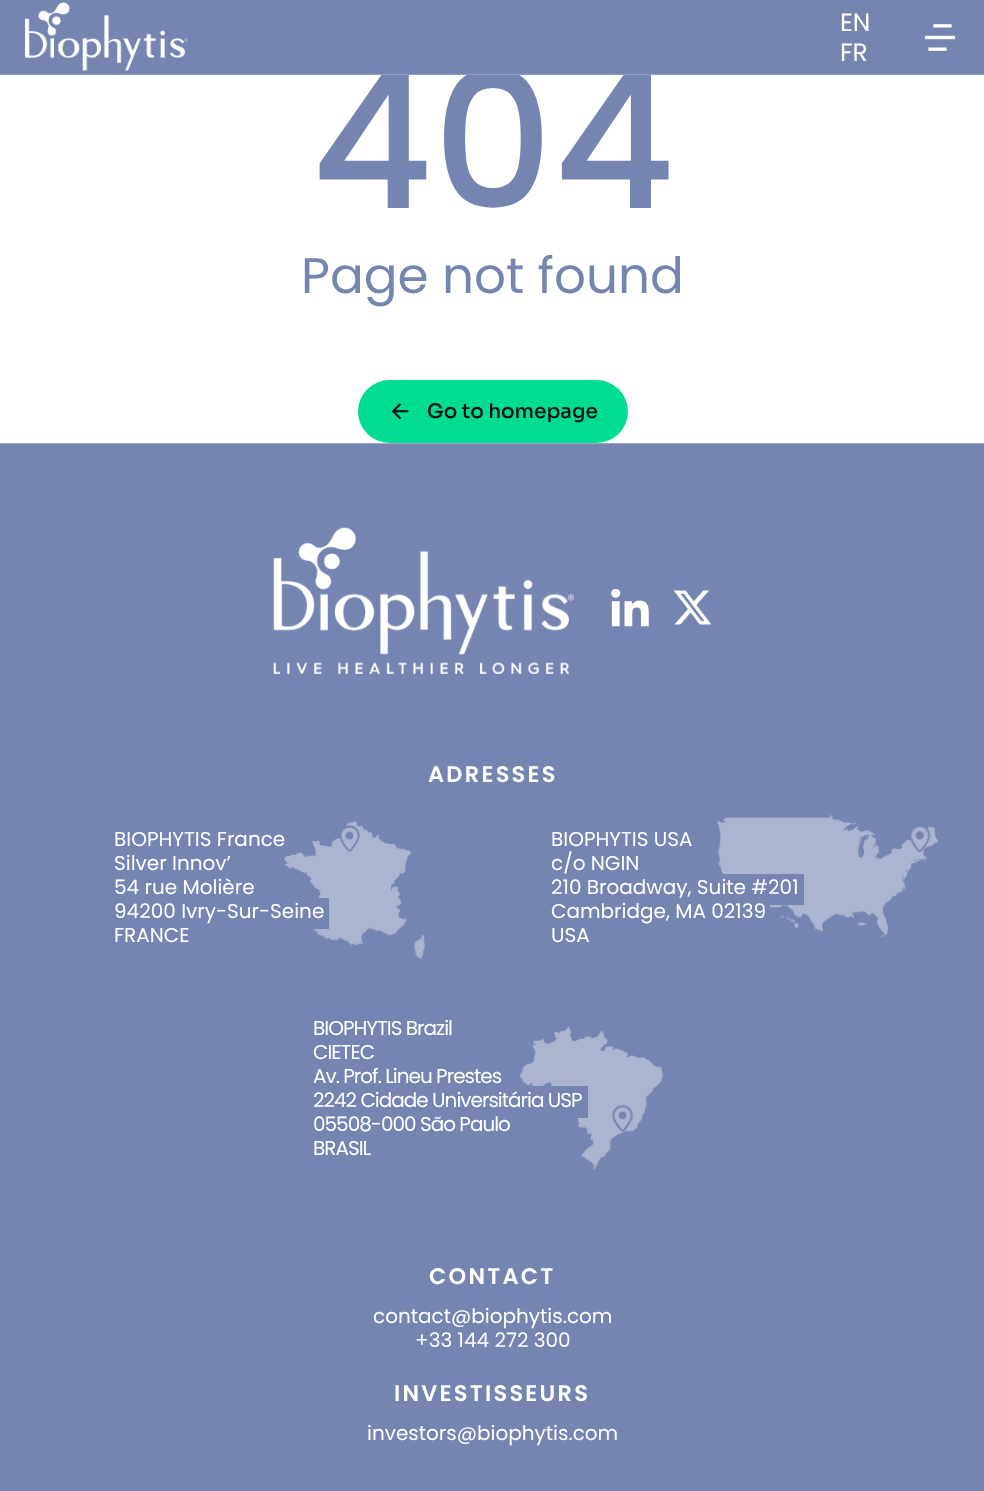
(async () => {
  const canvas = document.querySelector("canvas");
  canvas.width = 984;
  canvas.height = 1491;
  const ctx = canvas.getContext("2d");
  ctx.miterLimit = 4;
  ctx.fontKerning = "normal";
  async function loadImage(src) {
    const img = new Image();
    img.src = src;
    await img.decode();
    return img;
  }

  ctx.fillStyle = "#ffffff";
  ctx.fillRect(0, 0, 984, 1491);
  ctx.fillStyle = "#7684b1";
  ctx.fillRect(0, 0, 984, 74);
  ctx.drawImage(await loadImage("img/1.png"), 25, 2, 163, 69);
  ctx.drawImage(await loadImage("img/2.png"), 925, 24, 30, 27);
  ctx.fillStyle = "#00dc93";
  ctx.beginPath();
  ctx.roundRect(358, 380, 270, 63, 31.5);
  ctx.fill();
  ctx.drawImage(await loadImage("img/3.png"), 391, 403, 18, 17);
  ctx.fillStyle = "#7684b1";
  ctx.fillRect(0, 444, 984, 1047);
  ctx.fillStyle = "#9ca7c7";
  ctx.fillRect(0, 443, 984, 1);
  ctx.drawImage(await loadImage("img/4.png"), 273, 527, 301, 147);
  ctx.drawImage(await loadImage("img/5.png"), 611, 589, 38, 38);
  ctx.drawImage(await loadImage("img/6.png"), 674, 590, 37, 35);
  ctx.drawImage(await loadImage("img/7.png"), 284, 821, 142, 139);
  ctx.fillStyle = "#7684b1";
  ctx.fillRect(286, 855, 4, 1);
  ctx.fillRect(314, 898, 15, 31);
  ctx.drawImage(await loadImage("img/8.png"), 717, 814, 221, 123);
  ctx.fillRect(723, 874, 81, 31);
  ctx.drawImage(await loadImage("img/9.png"), 519, 1026, 144, 145);
  ctx.fillRect(531, 1086, 57, 32);
  ctx.font = "25px Poppins";
  ctx.fillStyle = "#ffffff";
  ctx.fillText("EN", 840, 31);
  ctx.fillText("FR", 840, 61);
  ctx.font = "500 188px Poppins";
  ctx.fillStyle = "#7684b1";
  ctx.fillText("404", 311, 208);
  ctx.fillStyle = "#919dc1";
  ctx.fillRect(0, 74, 984, 1);
  ctx.font = "50px Poppins";
  ctx.fillStyle = "#7684b1";
  ctx.fillText("Page not found", 301, 293);
  ctx.font = "500 20px Sora";
  ctx.fillStyle = "#080e10";
  ctx.fillText("Go to homepage", 427, 418);
  ctx.letterSpacing = "2.25px";
  ctx.font = "600 22.5px Poppins";
  ctx.fillStyle = "#ffffff";
  ctx.fillText("ADRESSES", 428, 782);
  ctx.letterSpacing = "0px";
  ctx.font = "20px Poppins";
  for (const [text, x, y] of [
    ["BIOPHYTIS France", 114, 846],
    ["Silver Innov’", 114, 870],
    ["54 rue Molière", 114, 894],
    ["94200 Ivry-Sur-Seine", 114, 918],
    ["FRANCE", 114, 942],
    ["BIOPHYTIS USA", 551, 846],
    ["c/o NGIN", 551, 870],
    ["210 Broadway, Suite #201", 551, 894],
  ]) {
    ctx.fillText(text, x, y);
  }
  ctx.fillStyle = "#7684b1";
  ctx.fillRect(678, 898, 92, 10);
  ctx.fillStyle = "#ffffff";
  ctx.fillText("Cambridge, MA 02139", 551, 918);
  ctx.fillText("USA", 551, 942);
  ctx.letterSpacing = "-1px";
  for (const [text, x, y] of [
    ["BIOPHYTIS Brazil", 313, 1035],
    ["CIETEC", 313, 1059],
    ["Av. Prof. Lineu Prestes", 313, 1083],
    ["2242 Cidade Universitária USP", 313, 1107],
    ["05508-000 São Paulo", 313, 1131],
    ["BRASIL", 313, 1155],
  ]) {
    ctx.fillText(text, x, y);
  }
  ctx.letterSpacing = "2.25px";
  ctx.font = "600 22.5px Poppins";
  ctx.fillText("CONTACT", 429, 1284);
  ctx.letterSpacing = "0px";
  ctx.font = "20px Poppins";
  ctx.fillText("contact@biophytis.com", 373, 1323);
  ctx.fillText("+33 144 272 300", 415, 1347);
  ctx.letterSpacing = "2.25px";
  ctx.font = "600 22.5px Poppins";
  ctx.fillText("INVESTISSEURS", 394, 1401);
  ctx.letterSpacing = "0px";
  ctx.font = "20px Poppins";
  ctx.fillText("investors@biophytis.com", 367, 1440);
})();
